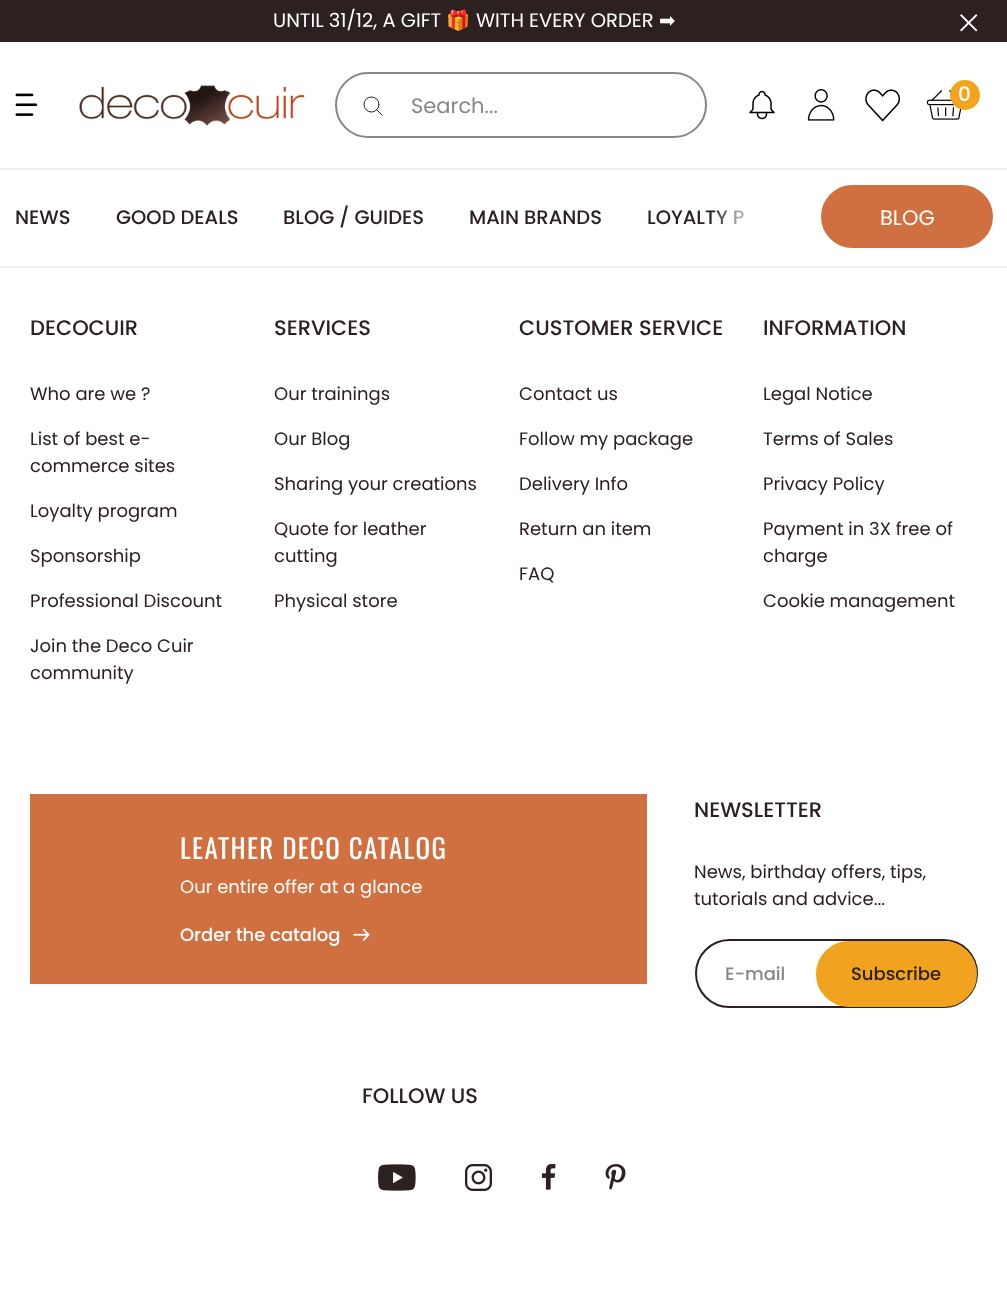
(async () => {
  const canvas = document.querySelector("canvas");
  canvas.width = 1007;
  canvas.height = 1289;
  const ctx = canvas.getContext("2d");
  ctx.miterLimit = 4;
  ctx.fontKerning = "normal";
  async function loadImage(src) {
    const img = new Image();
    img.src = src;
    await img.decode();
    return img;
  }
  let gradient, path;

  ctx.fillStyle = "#ffffff";
  ctx.fillRect(0, 0, 1007, 1289);
  ctx.fillStyle = "#2c2020";
  ctx.fillRect(0, 0, 1007, 42);
  ctx.drawImage(await loadImage("img/1.png"), 960, 14, 18, 18);
  ctx.drawImage(await loadImage("img/2.png"), 15, 93, 23, 23);
  ctx.drawImage(await loadImage("img/3.png"), 79, 85, 226, 41);
  ctx.beginPath();
  ctx.roundRect(336, 73, 370, 64, 32);
  ctx.strokeStyle = "#878787";
  ctx.lineWidth = 2;
  ctx.stroke();
  path = new Path2D("M382 115L377 110");
  ctx.strokeStyle = "#2c2020";
  ctx.lineWidth = 1;
  ctx.lineCap = "square";
  ctx.stroke(path);
  ctx.beginPath();
  ctx.arc(371.5, 104.5, 7.5, 0, Math.PI * 2);
  ctx.stroke();
  ctx.drawImage(await loadImage("img/4.png"), 749, 90, 26, 30);
  ctx.drawImage(await loadImage("img/5.png"), 807, 89, 28, 32);
  ctx.drawImage(await loadImage("img/6.png"), 865, 89, 35, 33);
  ctx.drawImage(await loadImage("img/7.png"), 926, 90, 36, 30);
  ctx.fillStyle = "#f1a41e";
  ctx.beginPath();
  ctx.arc(965, 95, 15, 0, Math.PI * 2);
  ctx.fill();
  ctx.fillStyle = "#f2f2f2";
  ctx.fillRect(0, 168, 1007, 2);
  ctx.fillRect(0, 266, 1007, 2);
  ctx.fillStyle = "#d07040";
  ctx.beginPath();
  ctx.roundRect(822, 186, 170, 61, 30.5);
  ctx.fill();
  ctx.strokeStyle = "#d07040";
  ctx.lineWidth = 2;
  ctx.stroke();
  ctx.fillRect(30, 794, 617, 190);
  ctx.drawImage(await loadImage("img/8.png"), 353, 928, 17, 13);
  ctx.beginPath();
  ctx.roundRect(696, 940, 281, 67, 33.5);
  ctx.strokeStyle = "#2c2020";
  ctx.stroke();
  ctx.fillStyle = "#f1a31f";
  ctx.beginPath();
  ctx.roundRect(817, 942, 159, 64, 32);
  ctx.fill();
  ctx.strokeStyle = "#f1a31f";
  ctx.stroke();
  ctx.drawImage(await loadImage("img/9.png"), 378, 1164, 38, 27);
  ctx.drawImage(await loadImage("img/10.png"), 465, 1164, 27, 27);
  ctx.drawImage(await loadImage("img/11.png"), 541, 1164, 15, 26);
  ctx.drawImage(await loadImage("img/12.png"), 605, 1164, 21, 26);
  ctx.font = "19.5px Poppins";
  ctx.fillStyle = "#ffffff";
  ctx.fillText("UNTIL 31/12, A GIFT", 273, 27);
  ctx.font = "19.5px Noto Color Emoji";
  ctx.fillText("🎁", 446, 27);
  ctx.font = "19.5px Poppins";
  ctx.fillText("WITH EVERY ORDER", 476, 27);
  ctx.font = "19.5px DejaVu Sans";
  ctx.fillText("➡︎", 659, 27);
  ctx.font = "21px Poppins";
  ctx.fillStyle = "#878787";
  ctx.fillText("Search...", 411, 113);
  ctx.font = "500 20px Poppins";
  ctx.fillStyle = "#ffffff";
  ctx.fillText("0", 958, 101);
  ctx.font = "500 19.5px Poppins";
  ctx.fillStyle = "#2c2020";
  for (const [text, x, y] of [
    ["NEWS", 15, 224],
    ["GOOD DEALS", 116, 224],
    ["BLOG / GUIDES", 283, 224],
    ["MAIN BRANDS", 469, 224],
    ["LOYALTY P", 647, 224],
  ]) {
    ctx.fillText(text, x, y);
  }
  gradient = ctx.createLinearGradient(716, 218, 776, 218);
  gradient.addColorStop(0, "rgba(255, 255, 255, 0.1)");
  gradient.addColorStop(0.35, "rgba(255, 255, 255, 0.6)");
  gradient.addColorStop(1, "#ffffff");
  ctx.fillStyle = gradient;
  ctx.fillRect(716, 210, 28, 14);
  ctx.font = "21px Poppins";
  ctx.fillStyle = "#ffffff";
  ctx.fillText("BLOG", 880, 225);
  ctx.font = "500 21px Poppins";
  ctx.fillStyle = "#2c2020";
  ctx.fillText("DECOCUIR", 30, 335);
  ctx.font = "18px Poppins";
  for (const [text, x, y] of [
    ["Who are we ?", 30, 400],
    ["List of best e-", 30, 445],
    ["commerce sites", 30, 472],
    ["Loyalty program", 30, 517],
    ["Sponsorship", 30, 562],
    ["Professional Discount", 30, 607],
    ["Join the Deco Cuir", 30, 652],
    ["community", 30, 679],
  ]) {
    ctx.fillText(text, x, y);
  }
  ctx.font = "500 21px Poppins";
  ctx.fillText("SERVICES", 274, 335);
  ctx.font = "18px Poppins";
  for (const [text, x, y] of [
    ["Our trainings", 274, 400],
    ["Our Blog", 274, 445],
    ["Sharing your creations", 274, 490],
    ["Quote for leather", 274, 535],
    ["cutting", 274, 562],
    ["Physical store", 274, 607],
  ]) {
    ctx.fillText(text, x, y);
  }
  ctx.font = "500 21px Poppins";
  ctx.fillText("CUSTOMER SERVICE", 519, 335);
  ctx.font = "18px Poppins";
  for (const [text, x, y] of [
    ["Contact us", 519, 400],
    ["Follow my package", 519, 445],
    ["Delivery Info", 519, 490],
    ["Return an item", 519, 535],
    ["FAQ", 519, 580],
  ]) {
    ctx.fillText(text, x, y);
  }
  ctx.font = "500 21px Poppins";
  ctx.fillText("INFORMATION", 763, 335);
  ctx.font = "18px Poppins";
  for (const [text, x, y] of [
    ["Legal Notice", 763, 400],
    ["Terms of Sales", 763, 445],
    ["Privacy Policy", 763, 490],
    ["Payment in 3X free of", 763, 535],
    ["charge", 763, 562],
    ["Cookie management", 763, 607],
  ]) {
    ctx.fillText(text, x, y);
  }
  ctx.letterSpacing = "1.35px";
  ctx.font = "27px Oswald";
  ctx.fillStyle = "#ffffff";
  ctx.fillText("LEATHER DECO CATALOG", 180, 859);
  ctx.letterSpacing = "0px";
  ctx.font = "18px Poppins";
  ctx.fillText("Our entire offer at a glance", 180, 893);
  ctx.font = "500 18px Poppins";
  ctx.fillText("Order the catalog", 180, 941);
  ctx.font = "500 21px Poppins";
  ctx.fillStyle = "#2c2020";
  ctx.fillText("NEWSLETTER", 694, 817);
  ctx.font = "18px Poppins";
  ctx.fillText("News, birthday offers, tips,", 694, 878);
  ctx.fillText("tutorials and advice...", 694, 905);
  ctx.font = "500 18px Poppins";
  ctx.fillStyle = "#878787";
  ctx.fillText("E-mail", 725, 980);
  ctx.fillStyle = "#2c2020";
  ctx.fillText("Subscribe", 851, 980);
  ctx.font = "500 21px Poppins";
  ctx.fillText("FOLLOW US", 362, 1103);
})();
